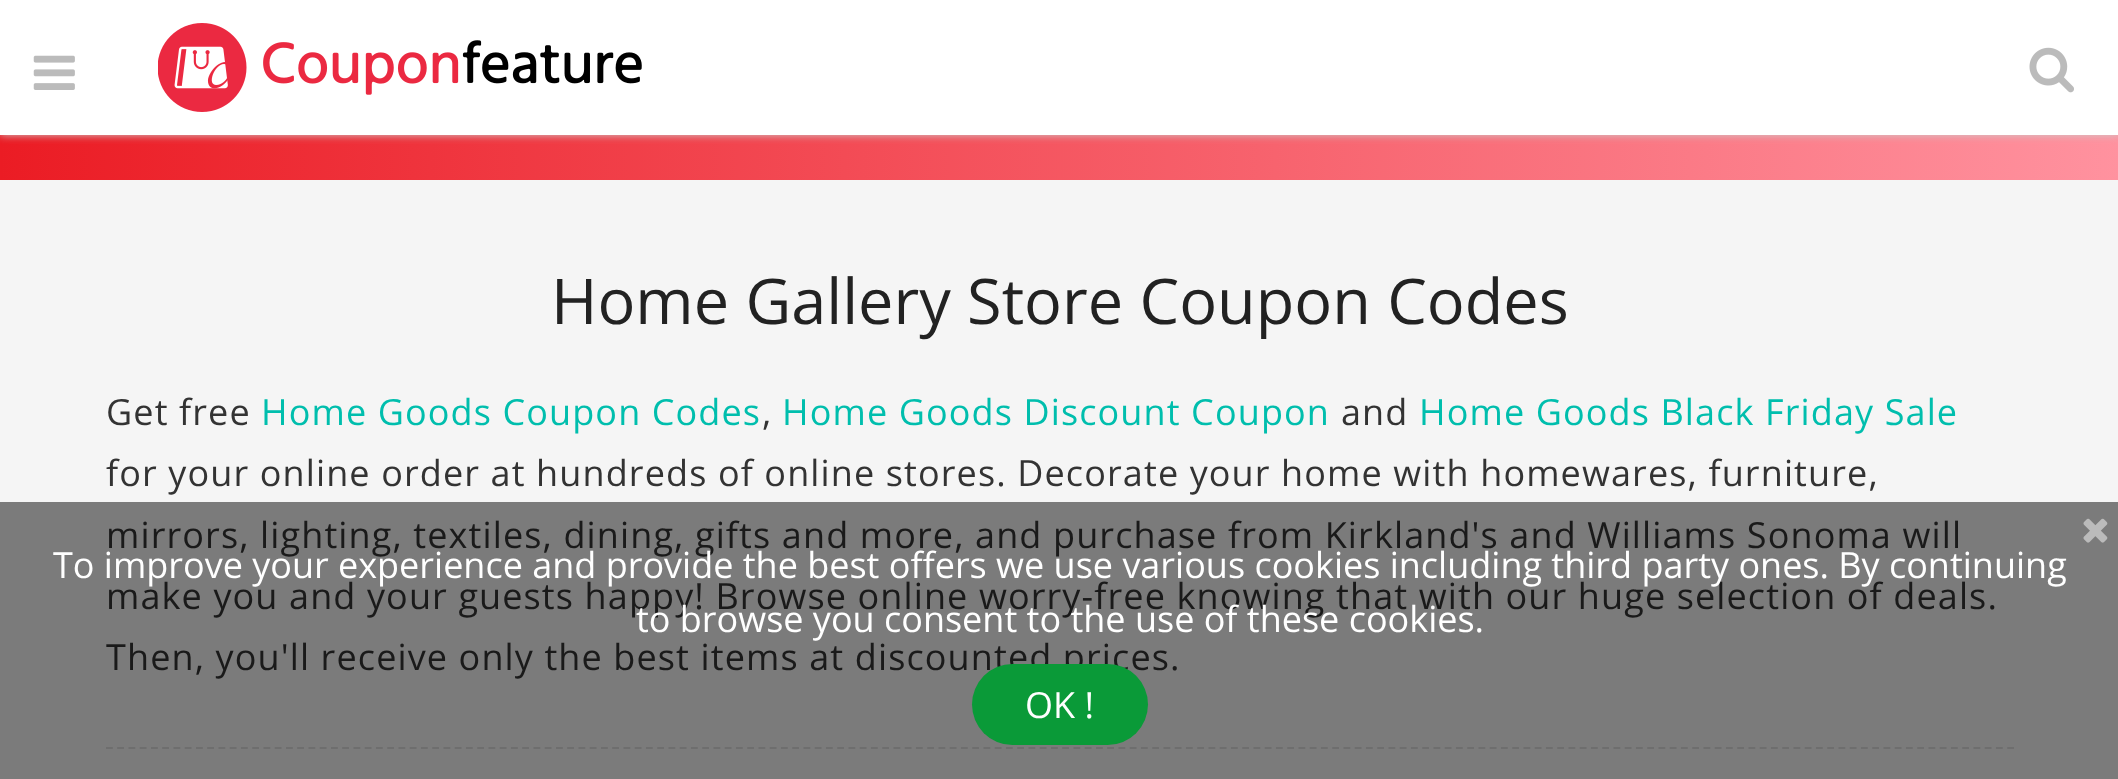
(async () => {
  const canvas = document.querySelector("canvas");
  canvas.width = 2118;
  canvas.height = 779;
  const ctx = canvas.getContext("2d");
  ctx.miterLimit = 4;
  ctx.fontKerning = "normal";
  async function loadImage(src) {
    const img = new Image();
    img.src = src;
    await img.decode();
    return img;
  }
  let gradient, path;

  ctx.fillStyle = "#f5f5f5";
  ctx.fillRect(0, 0, 2118, 779);
  ctx.fillStyle = "#7b7b7b";
  ctx.fillRect(0, 502, 2118, 277);
  ctx.fillStyle = "#ffffff";
  ctx.fillRect(0, 0, 2118, 135);
  gradient = ctx.createLinearGradient(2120, 157, 0, 158);
  gradient.addColorStop(0, "#ff929f");
  gradient.addColorStop(1, "#eb1c24");
  ctx.fillStyle = gradient;
  ctx.fillRect(0, 135, 2118, 45);
  ctx.save();
  ctx.beginPath();
  ctx.rect(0, 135, 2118, 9);
  ctx.clip();
  ctx.fillStyle = "#cccccc";
  ctx.filter = "blur(4.5px)";
  ctx.beginPath();
  ctx.rect(0, 0, 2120, 135);
  ctx.fill();
  ctx.filter = "none";
  ctx.restore();
  ctx.drawImage(await loadImage("img/1.png"), 33, 55, 42, 35);
  ctx.drawImage(await loadImage("img/2.png"), 158, 23, 484, 89);
  ctx.drawImage(await loadImage("img/3.png"), 2029, 47, 45, 46);
  path = new Path2D("M106 748H2014");
  ctx.strokeStyle = "#6e6e6e";
  ctx.lineWidth = 2.2;
  ctx.setLineDash([6.75, 4.5]);
  ctx.stroke(path);
  ctx.drawImage(await loadImage("img/4.png"), 2083, 518, 25, 25);
  ctx.font = "63px Open Sans";
  ctx.fillStyle = "#222222";
  ctx.fillText("Home Gallery Store Coupon Codes", 551, 324);
  ctx.letterSpacing = "1.12px";
  ctx.font = "36px Open Sans";
  ctx.fillStyle = "#333333";
  ctx.fillText("Get free", 106, 425);
  ctx.fillStyle = "#00bead";
  ctx.fillText("Home Goods Coupon Codes", 261, 425);
  ctx.fillStyle = "#333333";
  ctx.fillText(",", 762, 425);
  ctx.fillStyle = "#00bead";
  ctx.fillText("Home Goods Discount Coupon", 782, 425);
  ctx.fillStyle = "#333333";
  ctx.fillText("and", 1341, 425);
  ctx.fillStyle = "#00bead";
  ctx.fillText("Home Goods Black Friday Sale", 1419, 425);
  ctx.fillStyle = "#333333";
  ctx.fillText("for your online order at hundreds of online stores. Decorate your home with homewares, furniture,", 106, 486);
  ctx.fillStyle = "#1a1a1a";
  for (const [text, x, y] of [
    ["mirrors, lighting, textiles, dining, gifts and more, and purchase from Kirkland's and Williams Sonoma will", 106, 548],
    ["make you and your guests happy! Browse online worry-free knowing that with our huge selection of deals.", 106, 609],
    ["Then, you'll receive only the best items at discounted prices.", 106, 670],
  ]) {
    ctx.fillText(text, x, y);
  }
  ctx.letterSpacing = "0px";
  ctx.fillStyle = "#ffffff";
  ctx.fillText("To improve your experience and provide the best offers we use various cookies including third party ones. By continuing", 53, 578);
  ctx.fillText("to browse you consent to the use of these cookies.", 636, 632);
  ctx.fillStyle = "#0a9a38";
  ctx.beginPath();
  ctx.roundRect(972, 664, 176, 81, 40.5);
  ctx.fill();
  ctx.fillStyle = "#ffffff";
  ctx.fillText("OK !", 1025, 718);
})();
